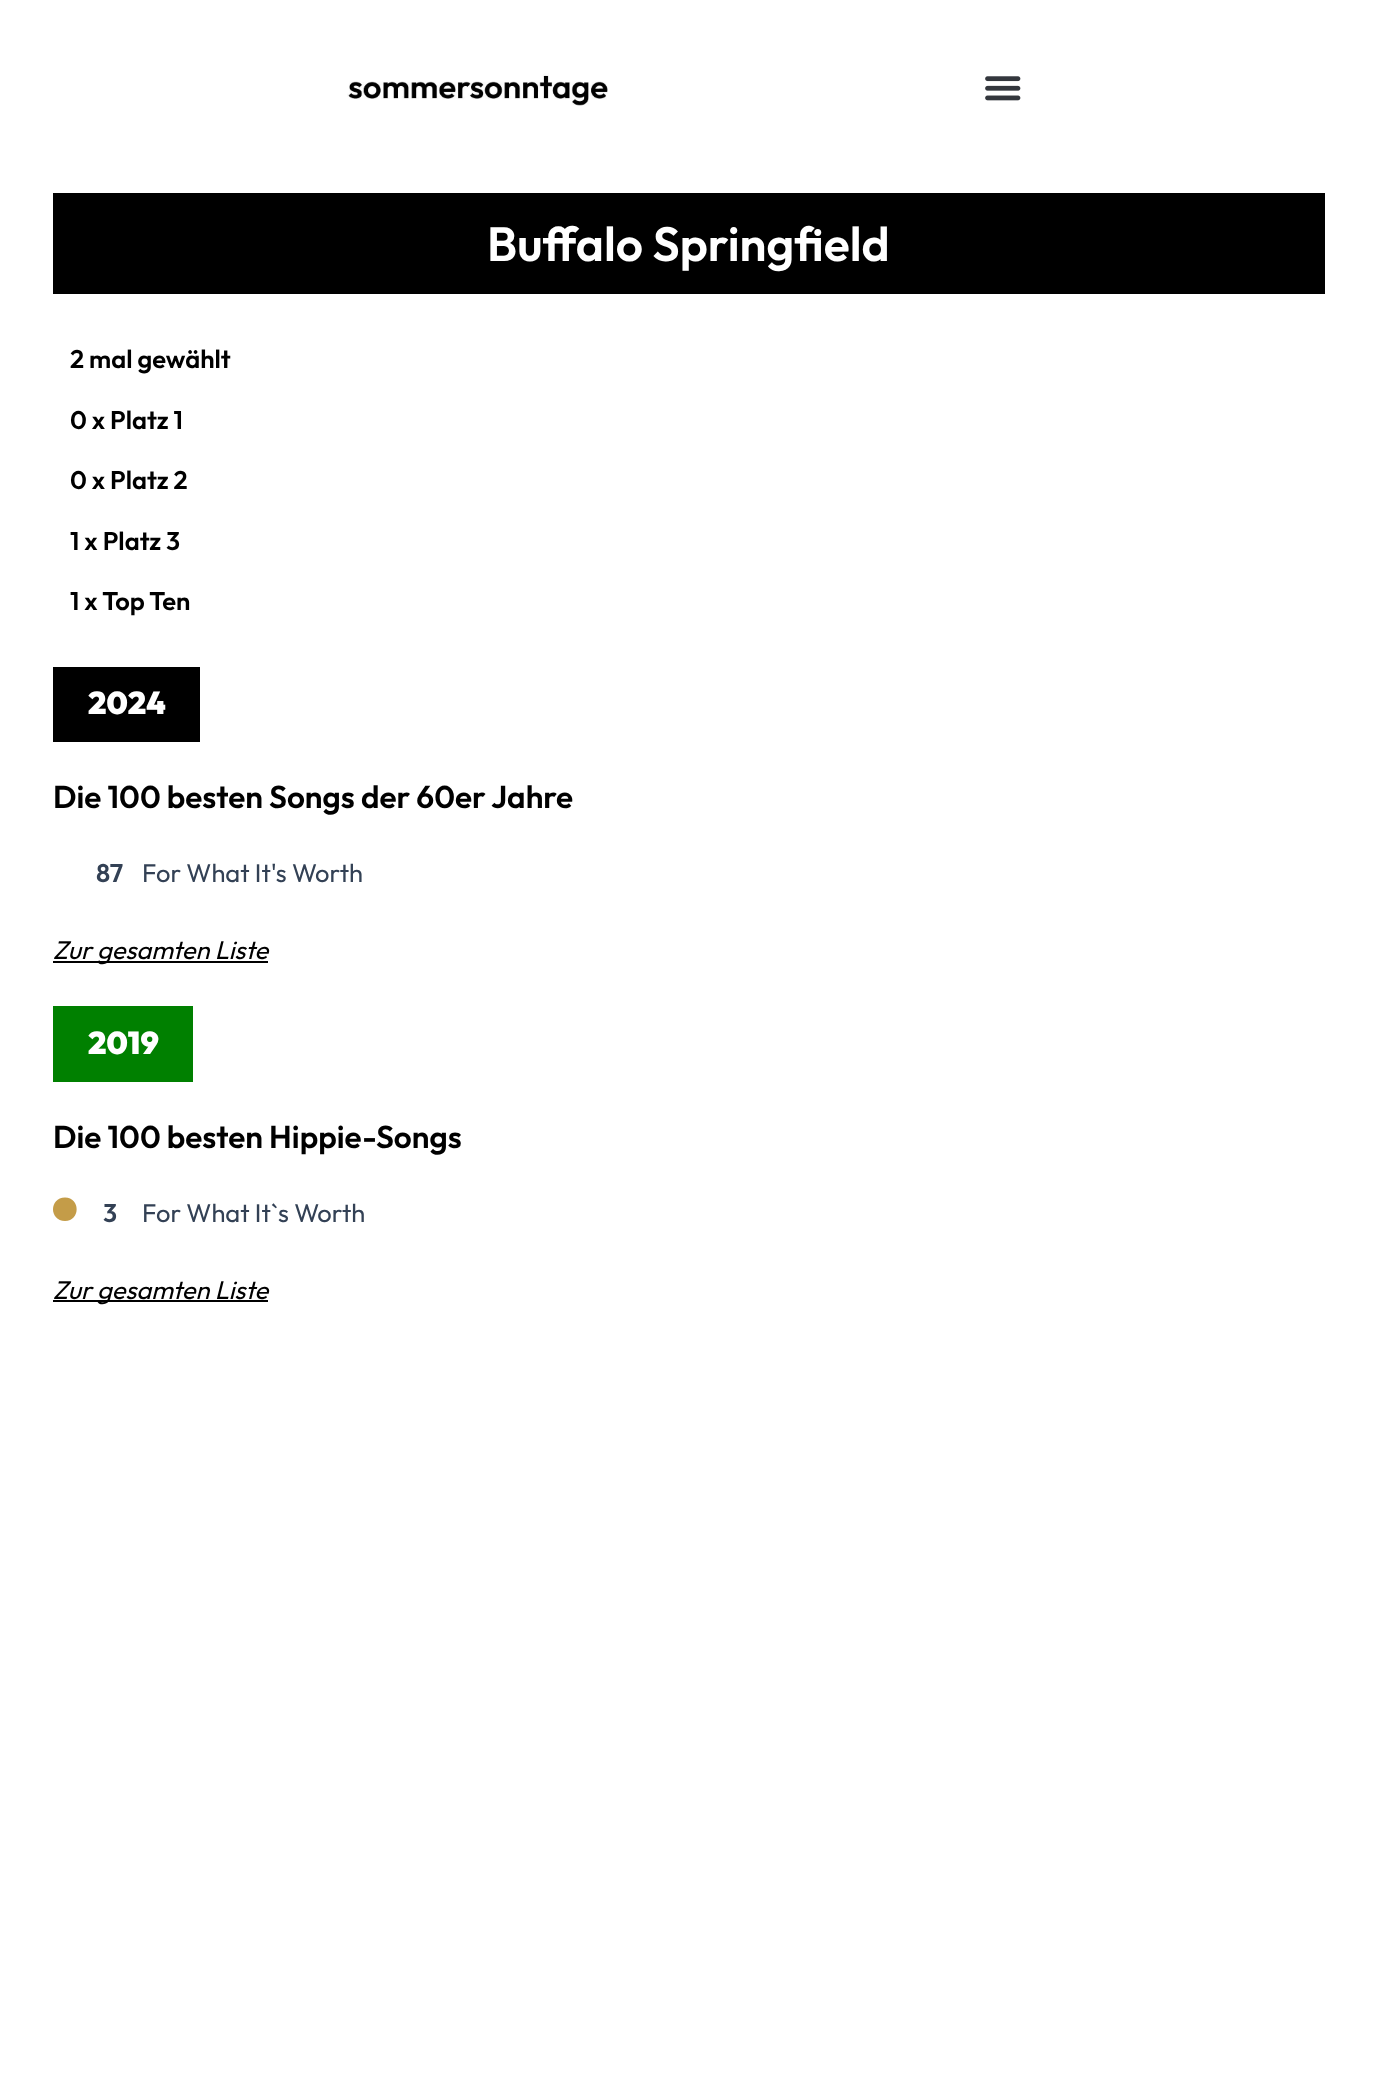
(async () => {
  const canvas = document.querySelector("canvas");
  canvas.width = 1377;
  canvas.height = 2094;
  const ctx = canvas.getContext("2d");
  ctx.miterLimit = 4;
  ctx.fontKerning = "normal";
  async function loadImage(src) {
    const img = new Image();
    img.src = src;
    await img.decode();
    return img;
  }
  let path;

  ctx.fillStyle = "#ffffff";
  ctx.fillRect(0, 0, 1377, 2094);
  ctx.drawImage(await loadImage("img/1.png"), 347, 73, 261, 33);
  ctx.drawImage(await loadImage("img/2.png"), 985, 76, 36, 25);
  for (const [x, y, w, h, color] of [
    [53, 193, 1272, 101, "#000000"],
    [53, 667, 147, 75, "#000000"],
    [53, 961, 215, 2, "#000000"],
    [53, 1006, 140, 76, "#008000"],
  ]) {
    ctx.fillStyle = color;
    ctx.fillRect(x, y, w, h);
  }
  ctx.fillStyle = "#c49c48";
  path = new Path2D("M65 1197.5C49 1197.5 49 1221 65 1221C80.5 1221 80.5 1197.5 65 1197.5Z");
  ctx.fill(path);
  ctx.fillStyle = "#000000";
  ctx.fillRect(53, 1300, 215, 2);
  ctx.font = "600 47.9px Outfit";
  ctx.fillStyle = "#ffffff";
  ctx.fillText("Buffalo Springfield", 487, 261);
  ctx.font = "600 25.5px Outfit";
  ctx.fillStyle = "#000000";
  for (const [text, x, y] of [
    ["2 mal gewählt", 70, 368],
    ["0 x Platz 1", 70, 429],
    ["0 x Platz 2", 70, 489],
    ["1 x Platz 3", 70, 550],
    ["1 x Top Ten", 70, 610],
  ]) {
    ctx.fillText(text, x, y);
  }
  ctx.font = "900 31.5px Outfit";
  ctx.fillStyle = "#ffffff";
  ctx.fillText("2024", 88, 714);
  ctx.font = "600 31.5px Outfit";
  ctx.fillStyle = "#000000";
  ctx.fillText("Die 100 besten Songs der 60er Jahre", 53, 808);
  ctx.font = "600 25.5px Outfit";
  ctx.fillStyle = "#334155";
  ctx.fillText("87", 96, 882);
  ctx.font = "25.5px Outfit";
  ctx.fillText("For What It's Worth", 142, 882);
  ctx.font = "italic 25.5px Outfit";
  ctx.fillStyle = "#000000";
  ctx.fillText("Zur gesamten Liste", 53, 959);
  ctx.font = "900 31.5px Outfit";
  ctx.fillStyle = "#ffffff";
  ctx.fillText("2019", 88, 1054);
  ctx.font = "600 31.5px Outfit";
  ctx.fillStyle = "#000000";
  ctx.fillText("Die 100 besten Hippie-Songs", 53, 1148);
  ctx.font = "600 25.5px Outfit";
  ctx.fillStyle = "#334155";
  ctx.fillText("3", 103, 1222);
  ctx.font = "25.5px Outfit";
  ctx.fillText("For What It`s Worth", 142, 1222);
  ctx.font = "italic 25.5px Outfit";
  ctx.fillStyle = "#000000";
  ctx.fillText("Zur gesamten Liste", 53, 1299);
})();
